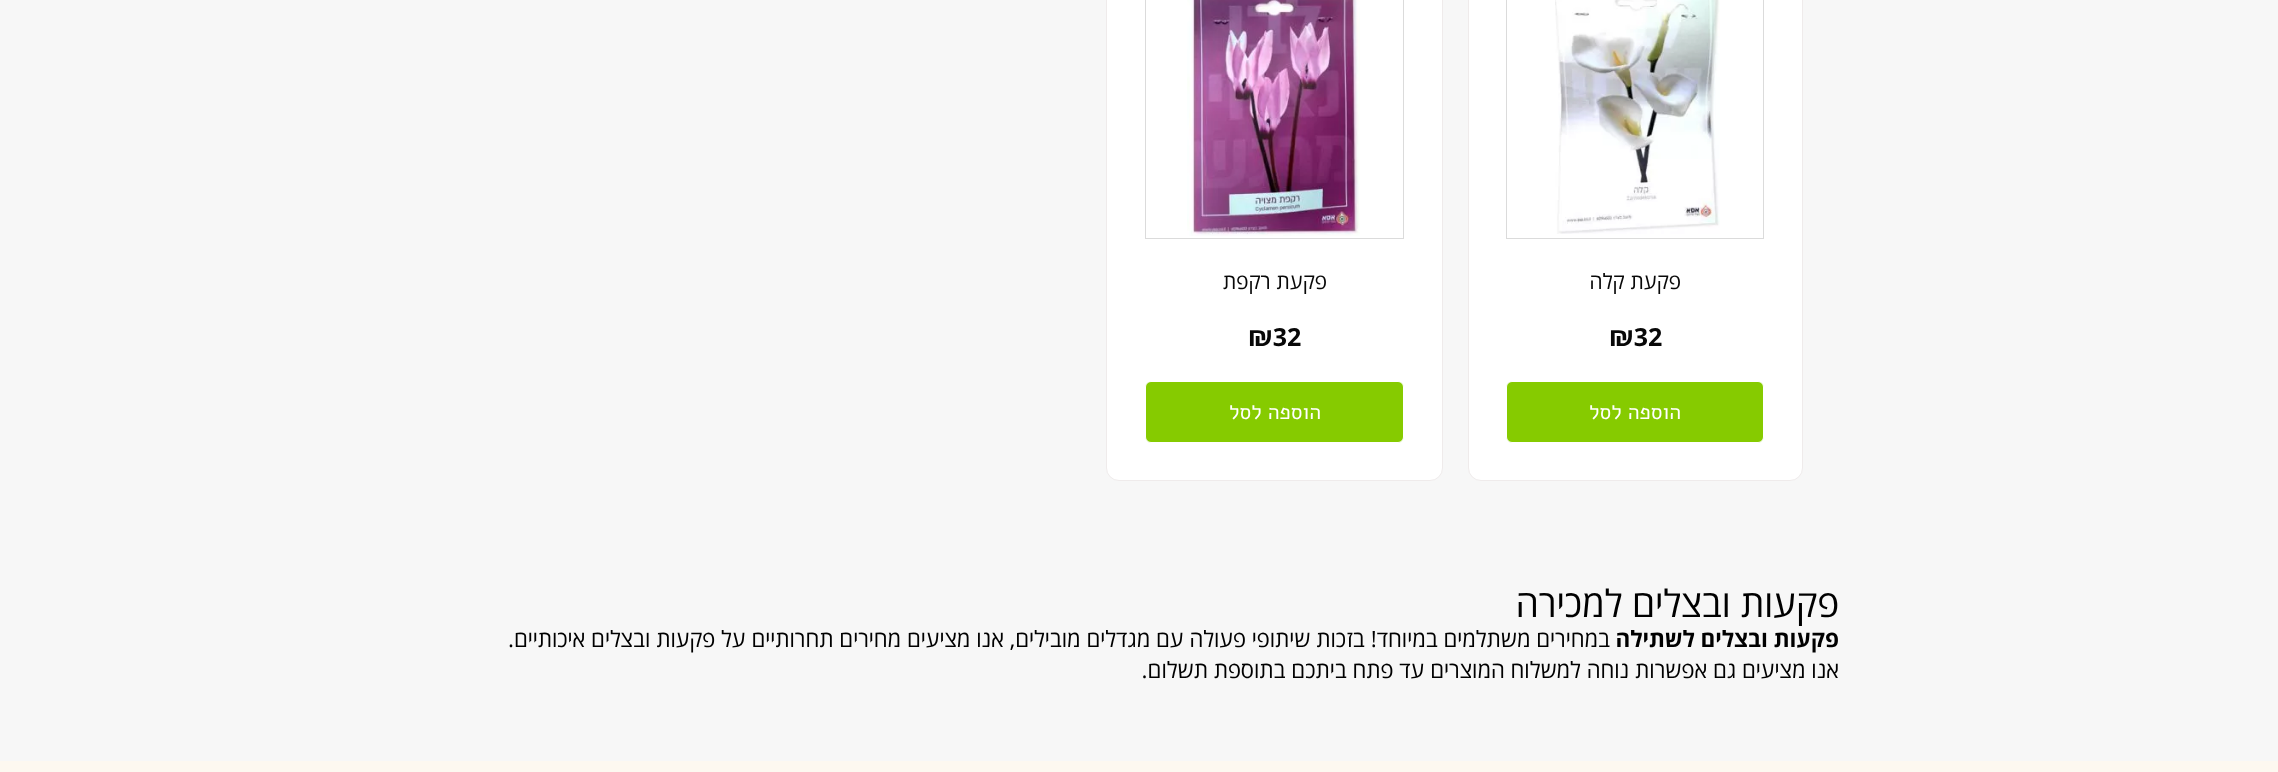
(async () => {
  const canvas = document.querySelector("canvas");
  canvas.width = 2278;
  canvas.height = 772;
  const ctx = canvas.getContext("2d");
  ctx.miterLimit = 4;
  ctx.fontKerning = "normal";
  async function loadImage(src) {
    const img = new Image();
    img.src = src;
    await img.decode();
    return img;
  }

  ctx.fillStyle = "#fdf8f0";
  ctx.fillRect(0, 0, 2278, 772);
  ctx.fillStyle = "#f7f7f7";
  ctx.fillRect(0, 0, 2278, 761);
  ctx.fillStyle = "#ffffff";
  ctx.beginPath();
  ctx.roundRect(1468.5, -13.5, 334, 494, 12.5);
  ctx.fill();
  ctx.strokeStyle = "#efebeb";
  ctx.stroke();
  ctx.strokeStyle = "#dbdbdb";
  ctx.strokeRect(1506.5, -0.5, 257, 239);
  ctx.drawImage(await loadImage("img/1.png"), 1555, 0, 165, 234);
  ctx.fillStyle = "#86cb00";
  ctx.beginPath();
  ctx.roundRect(1506.5, 381.5, 257, 61, 5.5);
  ctx.fill();
  ctx.strokeStyle = "#ffffff";
  ctx.stroke();
  ctx.fillStyle = "#ffffff";
  ctx.beginPath();
  ctx.roundRect(1106.5, -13.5, 336, 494, 12.5);
  ctx.fill();
  ctx.strokeStyle = "#efebeb";
  ctx.stroke();
  ctx.strokeStyle = "#dbdbdb";
  ctx.strokeRect(1145.5, -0.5, 258, 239);
  ctx.drawImage(await loadImage("img/2.png"), 1187, 0, 173, 236);
  ctx.fillStyle = "#86cb00";
  ctx.beginPath();
  ctx.roundRect(1145.5, 381.5, 258, 61, 5.5);
  ctx.fill();
  ctx.strokeStyle = "#ffffff";
  ctx.stroke();
  ctx.direction = "rtl";
  ctx.font = "21.25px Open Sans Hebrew";
  ctx.fillStyle = "#080808";
  ctx.fillText("פקעת קלה", 1681, 289);
  ctx.direction = "ltr";
  ctx.font = "bold 25px Open Sans Hebrew";
  ctx.fillText("₪32", 1609, 346);
  ctx.direction = "rtl";
  ctx.font = "21.25px Alef";
  ctx.fillStyle = "#ffffff";
  ctx.fillText("הוספה לסל", 1681, 419);
  ctx.font = "21.25px Open Sans Hebrew";
  ctx.fillStyle = "#080808";
  ctx.fillText("פקעת רקפת", 1327, 289);
  ctx.direction = "ltr";
  ctx.font = "bold 25px Open Sans Hebrew";
  ctx.fillText("₪32", 1248, 346);
  ctx.direction = "rtl";
  ctx.font = "21.25px Alef";
  ctx.fillStyle = "#ffffff";
  ctx.fillText("הוספה לסל", 1321, 419);
  ctx.font = "37.5px Open Sans Hebrew";
  ctx.fillStyle = "#000000";
  ctx.fillText("פקעות ובצלים למכירה", 1839, 617);
  ctx.font = "bold 22.5px Open Sans Hebrew";
  ctx.fillText("פקעות ובצלים לשתילה", 1839, 647);
  ctx.font = "22.5px Open Sans Hebrew";
  for (const [text, x, y] of [
    ["ב", 1610, 647],
    ["מחירים משתלמים במיוחד! בזכות שיתופי פעולה עם מגדלים מובילים, אנו מציעים מחירים תחרותיים על פקעות ובצלים איכותיים.", 1598, 647],
    ["אנו מציעים גם אפשרות נוחה למשלוח המוצרים עד פתח ביתכם בתוספת תשלום.", 1839, 678],
  ]) {
    ctx.fillText(text, x, y);
  }
})();
